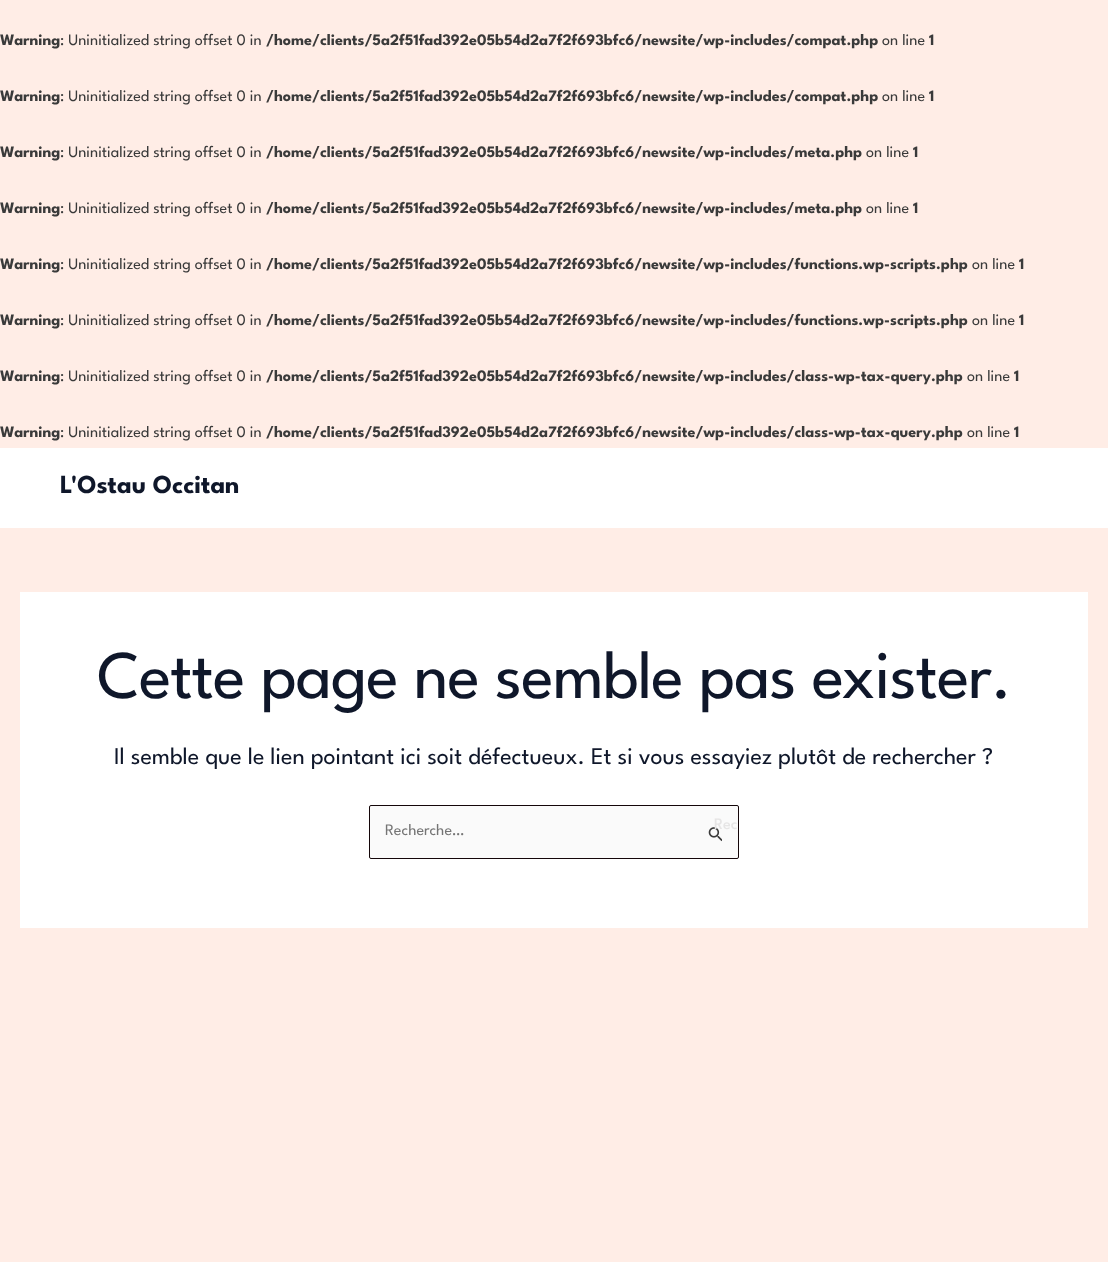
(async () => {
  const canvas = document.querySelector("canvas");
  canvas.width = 1108;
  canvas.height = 1262;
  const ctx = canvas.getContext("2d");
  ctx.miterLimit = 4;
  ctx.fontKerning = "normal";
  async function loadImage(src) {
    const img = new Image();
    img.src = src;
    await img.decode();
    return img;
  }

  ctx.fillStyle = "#ffede6";
  ctx.fillRect(0, 0, 1108, 1262);
  ctx.fillStyle = "#ffffff";
  ctx.fillRect(0, 448, 1108, 80);
  ctx.fillRect(20, 592, 1068, 336);
  ctx.fillStyle = "#fafafa";
  ctx.beginPath();
  ctx.roundRect(369.5, 805.5, 369, 53, 1.5);
  ctx.fill();
  ctx.strokeStyle = "#140609";
  ctx.stroke();
  ctx.drawImage(await loadImage("img/1.png"), 708, 827, 14, 15);
  ctx.font = "bold 16px League Spartan";
  ctx.fillStyle = "#3a3a3a";
  ctx.fillText("Warning", 0, 45);
  ctx.font = "16px League Spartan";
  ctx.fillText(": Uninitialized string offset 0 in", 60, 45);
  ctx.font = "bold 16px League Spartan";
  ctx.fillText("/home/clients/5a2f51fad392e05b54d2a7f2f693bfc6/newsite/wp-includes/compat.php", 266, 45);
  ctx.font = "16px League Spartan";
  ctx.fillText("on line", 882, 45);
  ctx.font = "bold 16px League Spartan";
  ctx.fillText("1", 929, 45);
  ctx.fillText("Warning", 0, 101);
  ctx.font = "16px League Spartan";
  ctx.fillText(": Uninitialized string offset 0 in", 60, 101);
  ctx.font = "bold 16px League Spartan";
  ctx.fillText("/home/clients/5a2f51fad392e05b54d2a7f2f693bfc6/newsite/wp-includes/compat.php", 266, 101);
  ctx.font = "16px League Spartan";
  ctx.fillText("on line", 882, 101);
  ctx.font = "bold 16px League Spartan";
  ctx.fillText("1", 929, 101);
  ctx.fillText("Warning", 0, 157);
  ctx.font = "16px League Spartan";
  ctx.fillText(": Uninitialized string offset 0 in", 60, 157);
  ctx.font = "bold 16px League Spartan";
  ctx.fillText("/home/clients/5a2f51fad392e05b54d2a7f2f693bfc6/newsite/wp-includes/meta.php", 266, 157);
  ctx.font = "16px League Spartan";
  ctx.fillText("on line", 866, 157);
  ctx.font = "bold 16px League Spartan";
  ctx.fillText("1", 913, 157);
  ctx.fillText("Warning", 0, 213);
  ctx.font = "16px League Spartan";
  ctx.fillText(": Uninitialized string offset 0 in", 60, 213);
  ctx.font = "bold 16px League Spartan";
  ctx.fillText("/home/clients/5a2f51fad392e05b54d2a7f2f693bfc6/newsite/wp-includes/meta.php", 266, 213);
  ctx.font = "16px League Spartan";
  ctx.fillText("on line", 866, 213);
  ctx.font = "bold 16px League Spartan";
  ctx.fillText("1", 913, 213);
  ctx.fillText("Warning", 0, 269);
  ctx.font = "16px League Spartan";
  ctx.fillText(": Uninitialized string offset 0 in", 60, 269);
  ctx.font = "bold 16px League Spartan";
  ctx.fillText("/home/clients/5a2f51fad392e05b54d2a7f2f693bfc6/newsite/wp-includes/functions.wp-scripts.php", 266, 269);
  ctx.font = "16px League Spartan";
  ctx.fillText("on line", 972, 269);
  ctx.font = "bold 16px League Spartan";
  ctx.fillText("1", 1019, 269);
  ctx.fillText("Warning", 0, 325);
  ctx.font = "16px League Spartan";
  ctx.fillText(": Uninitialized string offset 0 in", 60, 325);
  ctx.font = "bold 16px League Spartan";
  ctx.fillText("/home/clients/5a2f51fad392e05b54d2a7f2f693bfc6/newsite/wp-includes/functions.wp-scripts.php", 266, 325);
  ctx.font = "16px League Spartan";
  ctx.fillText("on line", 972, 325);
  ctx.font = "bold 16px League Spartan";
  ctx.fillText("1", 1019, 325);
  ctx.fillText("Warning", 0, 381);
  ctx.font = "16px League Spartan";
  ctx.fillText(": Uninitialized string offset 0 in", 60, 381);
  ctx.font = "bold 16px League Spartan";
  ctx.fillText("/home/clients/5a2f51fad392e05b54d2a7f2f693bfc6/newsite/wp-includes/class-wp-tax-query.php", 266, 381);
  ctx.font = "16px League Spartan";
  ctx.fillText("on line", 967, 381);
  ctx.font = "bold 16px League Spartan";
  ctx.fillText("1", 1014, 381);
  ctx.fillText("Warning", 0, 437);
  ctx.font = "16px League Spartan";
  ctx.fillText(": Uninitialized string offset 0 in", 60, 437);
  ctx.font = "bold 16px League Spartan";
  ctx.fillText("/home/clients/5a2f51fad392e05b54d2a7f2f693bfc6/newsite/wp-includes/class-wp-tax-query.php", 266, 437);
  ctx.font = "16px League Spartan";
  ctx.fillText("on line", 967, 437);
  ctx.font = "bold 16px League Spartan";
  ctx.fillText("1", 1014, 437);
  ctx.font = "bold 26px League Spartan";
  ctx.fillStyle = "#0f172a";
  ctx.fillText("L'Ostau Occitan", 60, 493);
  ctx.letterSpacing = "-1px";
  ctx.font = "68px League Spartan";
  ctx.fillText("Cette page ne semble pas exister.", 97, 698);
  ctx.letterSpacing = "0px";
  ctx.font = "24px League Spartan";
  ctx.fillText("Il semble que le lien pointant ici soit défectueux. Et si vous essayiez plutôt de rechercher ?", 114, 764);
  ctx.font = "16px League Spartan";
  ctx.fillStyle = "#757575";
  ctx.fillText("Recherche…", 385, 835);
  ctx.font = "500 16px League Spartan";
  ctx.fillStyle = "#e6e5e5";
  ctx.fillText("Rec", 714, 829);
})();
